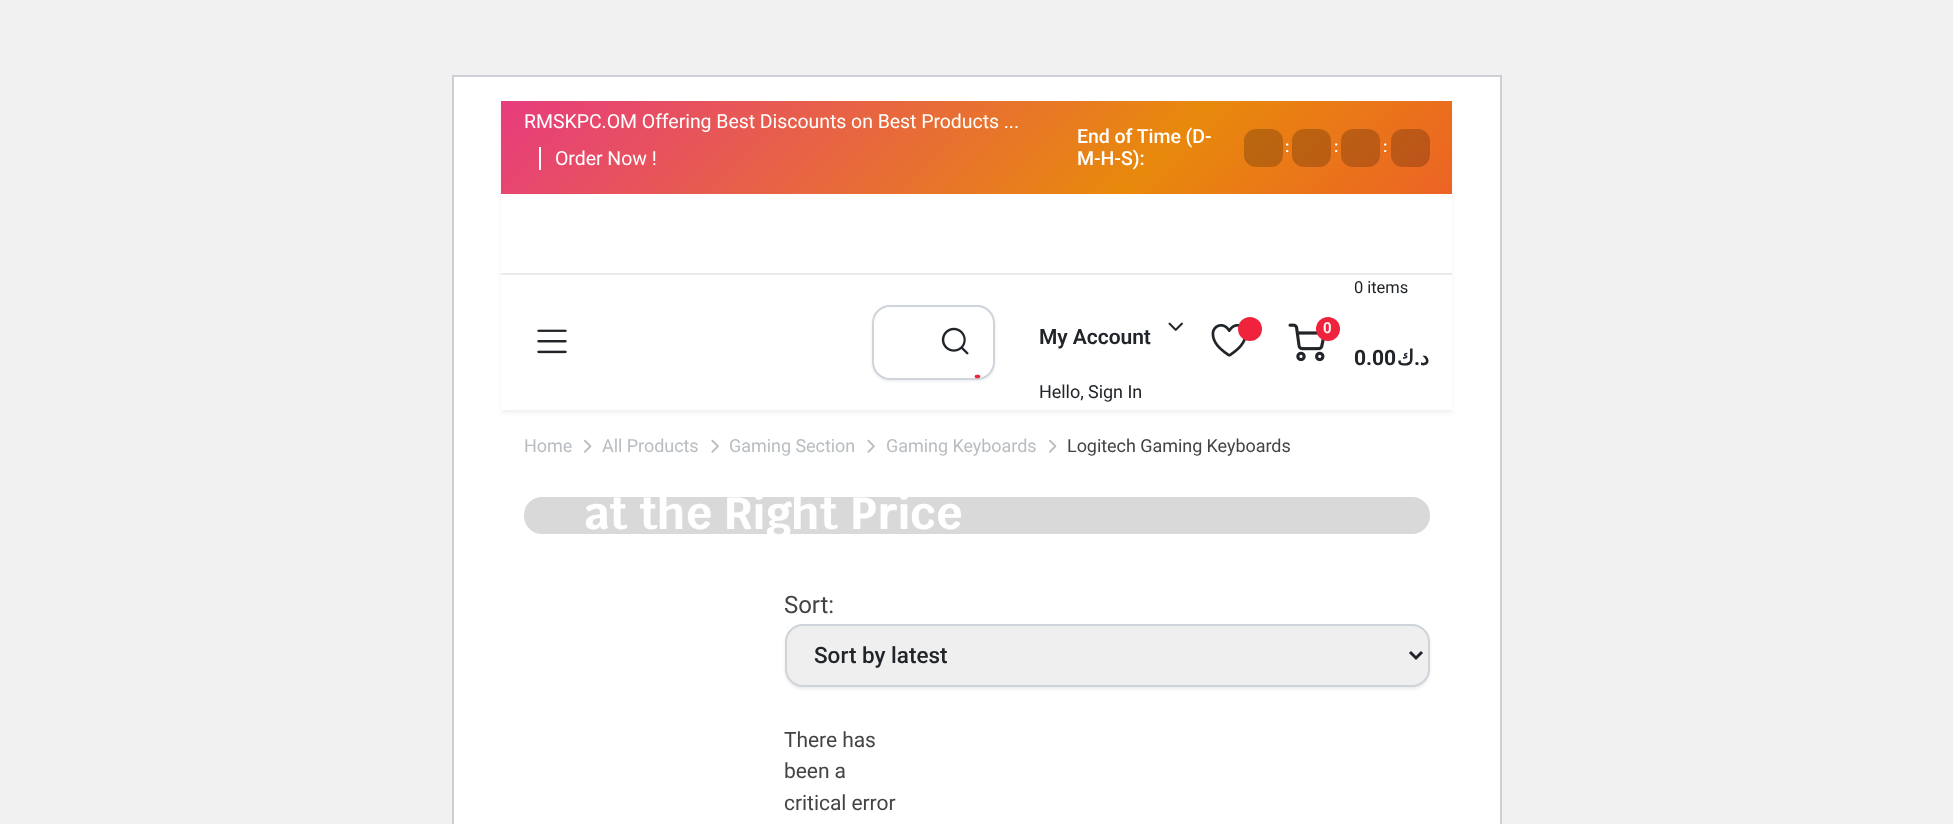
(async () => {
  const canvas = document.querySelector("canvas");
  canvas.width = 1953;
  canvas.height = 824;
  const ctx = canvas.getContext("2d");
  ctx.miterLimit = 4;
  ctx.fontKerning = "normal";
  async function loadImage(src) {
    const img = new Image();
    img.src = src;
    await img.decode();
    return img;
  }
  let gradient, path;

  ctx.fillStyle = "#f1f1f1";
  ctx.fillRect(0, 0, 1953, 824);
  ctx.fillStyle = "#ffffff";
  ctx.beginPath();
  ctx.rect(453, 76, 1048, 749);
  ctx.fill();
  ctx.strokeStyle = "#ccd0d4";
  ctx.lineWidth = 2;
  ctx.stroke();
  ctx.save();
  path = new Path2D("M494 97H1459V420H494ZM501 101H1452V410H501Z");
  ctx.clip(path, "evenodd");
  ctx.fillStyle = "rgba(33, 37, 41, 0.07)";
  ctx.filter = "blur(2px)";
  ctx.beginPath();
  ctx.rect(501, 104, 951, 309);
  ctx.fill();
  ctx.filter = "none";
  ctx.restore();
  gradient = ctx.createLinearGradient(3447, 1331, 1359, -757);
  gradient.addColorStop(0, "#ed1c66");
  gradient.addColorStop(0.17, "#6a23d5");
  gradient.addColorStop(0.33, "#23a6d5");
  gradient.addColorStop(0.5, "#23d5ab");
  gradient.addColorStop(0.67, "#f03e3e");
  gradient.addColorStop(0.83, "#e8890c");
  gradient.addColorStop(1, "#e73c7e");
  ctx.fillStyle = gradient;
  ctx.fillRect(501, 101, 951, 93);
  ctx.fillStyle = "#ffffff";
  ctx.fillRect(539, 147, 2, 23);
  ctx.fillStyle = "rgba(0, 0, 0, 0.2)";
  ctx.beginPath();
  ctx.roundRect(1244, 129, 39, 38, 12);
  ctx.fill();
  ctx.beginPath();
  ctx.roundRect(1292, 129, 39, 38, 12);
  ctx.fill();
  ctx.beginPath();
  ctx.roundRect(1341, 129, 39, 38, 12);
  ctx.fill();
  ctx.beginPath();
  ctx.roundRect(1391, 129, 39, 38, 12);
  ctx.fill();
  ctx.fillStyle = "#e9ecef";
  ctx.fillRect(501, 273, 951, 2);
  ctx.fillStyle = "#ffffff";
  ctx.fillRect(501, 409, 951, 1);
  ctx.drawImage(await loadImage("img/1.png"), 537, 329, 30, 25);
  ctx.save();
  path = new Path2D("M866 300H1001V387H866ZM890 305H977C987 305 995 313 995 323V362C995 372 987 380 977 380H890C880 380 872 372 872 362V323C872 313 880 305 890 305Z");
  ctx.clip(path, "evenodd");
  ctx.fillStyle = "rgba(33, 37, 41, 0.09)";
  ctx.filter = "blur(1.5px)";
  ctx.beginPath();
  ctx.roundRect(872, 306, 123, 75, 18);
  ctx.fill();
  ctx.filter = "none";
  ctx.restore();
  ctx.beginPath();
  ctx.roundRect(873, 306, 121, 73, 17);
  ctx.strokeStyle = "#ced4da";
  ctx.stroke();
  ctx.drawImage(await loadImage("img/2.png"), 941, 327, 28, 28);
  ctx.drawImage(await loadImage("img/3.png"), 1168, 322, 15, 9);
  ctx.drawImage(await loadImage("img/4.png"), 1211, 324, 35, 33);
  ctx.fillStyle = "#ef233c";
  ctx.beginPath();
  ctx.arc(1250, 329, 12, 0, Math.PI * 2);
  ctx.fill();
  ctx.drawImage(await loadImage("img/5.png"), 1288, 323, 37, 39);
  ctx.beginPath();
  ctx.arc(1328, 329, 12, 0, Math.PI * 2);
  ctx.fill();
  path = new Path2D("M976.5 376.5H978.5");
  ctx.strokeStyle = "#ef233c";
  ctx.lineWidth = 3.6;
  ctx.lineCap = "round";
  ctx.stroke(path);
  ctx.drawImage(await loadImage("img/6.png"), 584, 439, 8, 14);
  ctx.drawImage(await loadImage("img/7.png"), 711, 439, 8, 14);
  ctx.drawImage(await loadImage("img/7.png"), 867, 439, 8, 14);
  ctx.drawImage(await loadImage("img/6.png"), 1049, 439, 8, 14);
  ctx.fillStyle = "#d9d9d9";
  ctx.beginPath();
  ctx.roundRect(524, 497, 906, 37, 18);
  ctx.fill();
  ctx.fillStyle = "rgba(33, 37, 41, 0.09)";
  ctx.filter = "blur(1.5px)";
  ctx.beginPath();
  ctx.roundRect(785, 626, 645, 63, 18);
  ctx.fill();
  ctx.filter = "none";
  ctx.fillStyle = "#efefef";
  ctx.beginPath();
  ctx.roundRect(786, 625, 643, 61, 17);
  ctx.fill();
  ctx.strokeStyle = "#ced4da";
  ctx.lineWidth = 2;
  ctx.stroke();
  path = new Path2D("M1410 652L1416 658L1422 652");
  ctx.strokeStyle = "#212529";
  ctx.lineWidth = 3;
  ctx.lineCap = "butt";
  ctx.stroke(path);
  ctx.letterSpacing = "-0.05px";
  ctx.font = "19.5px Roboto";
  ctx.fillStyle = "#ffffff";
  ctx.fillText("RMSKPC.OM Offering Best Discounts on Best Products ...", 524, 128);
  ctx.fillText("Order Now !", 555, 165);
  ctx.font = "500 19.5px Roboto";
  ctx.fillText("End of Time (D-", 1077, 143);
  ctx.fillText("M-H-S):", 1077, 165);
  ctx.font = "600 16px Roboto";
  for (const [text, x, y] of [
    [":", 1285, 152],
    [":", 1334, 152],
    [":", 1383, 152],
  ]) {
    ctx.fillText(text, x, y);
  }
  ctx.font = "600 21px Roboto";
  ctx.fillStyle = "#212529";
  ctx.fillText("My Account", 1039, 344);
  ctx.font = "18px Roboto";
  ctx.fillText("Hello, Sign In", 1039, 398);
  ctx.font = "600 15px Roboto";
  ctx.fillStyle = "#ffffff";
  ctx.fillText("0", 1323, 333);
  ctx.font = "16.5px Roboto";
  ctx.fillStyle = "#212529";
  ctx.fillText("0 items", 1354, 293);
  ctx.font = "bold 21px Roboto";
  ctx.fillText("0.00", 1354, 365);
  ctx.direction = "rtl";
  ctx.font = "bold 21px DejaVu Sans";
  ctx.fillText("ك", 1414, 365);
  ctx.font = "bold 21px Roboto";
  ctx.fillText(".", 1420, 365);
  ctx.font = "bold 21px DejaVu Sans";
  ctx.fillText("د", 1429, 365);
  ctx.direction = "ltr";
  ctx.font = "18px Roboto";
  ctx.fillStyle = "#b8bdc1";
  for (const [text, x, y] of [
    ["Home", 524, 452],
    ["All Products", 602, 452],
    ["Gaming Section", 729, 452],
    ["Gaming Keyboards", 886, 452],
  ]) {
    ctx.fillText(text, x, y);
  }
  ctx.fillStyle = "#444444";
  ctx.fillText("Logitech Gaming Keyboards", 1067, 452);
  ctx.save();
  ctx.beginPath();
  ctx.rect(524, 497, 906, 37);
  ctx.clip();
  ctx.letterSpacing = "0px";
  ctx.font = "bold 45px Krub";
  ctx.fillStyle = "#ffffff";
  ctx.fillText("at the Right Price", 584, 529);
  ctx.restore();
  ctx.font = "24px Roboto";
  ctx.fillText("Sort:", 784, 613);
  ctx.letterSpacing = "0px";
  ctx.font = "500 22.5px Roboto";
  ctx.fillStyle = "#212529";
  ctx.fillText("Sort by latest", 814, 663);
  ctx.letterSpacing = "-0.05px";
  ctx.font = "21px Roboto";
  ctx.fillStyle = "#444444";
  for (const [text, x, y] of [
    ["There has", 784, 747],
    ["been a", 784, 778],
    ["critical error", 784, 810],
  ]) {
    ctx.fillText(text, x, y);
  }
})();
